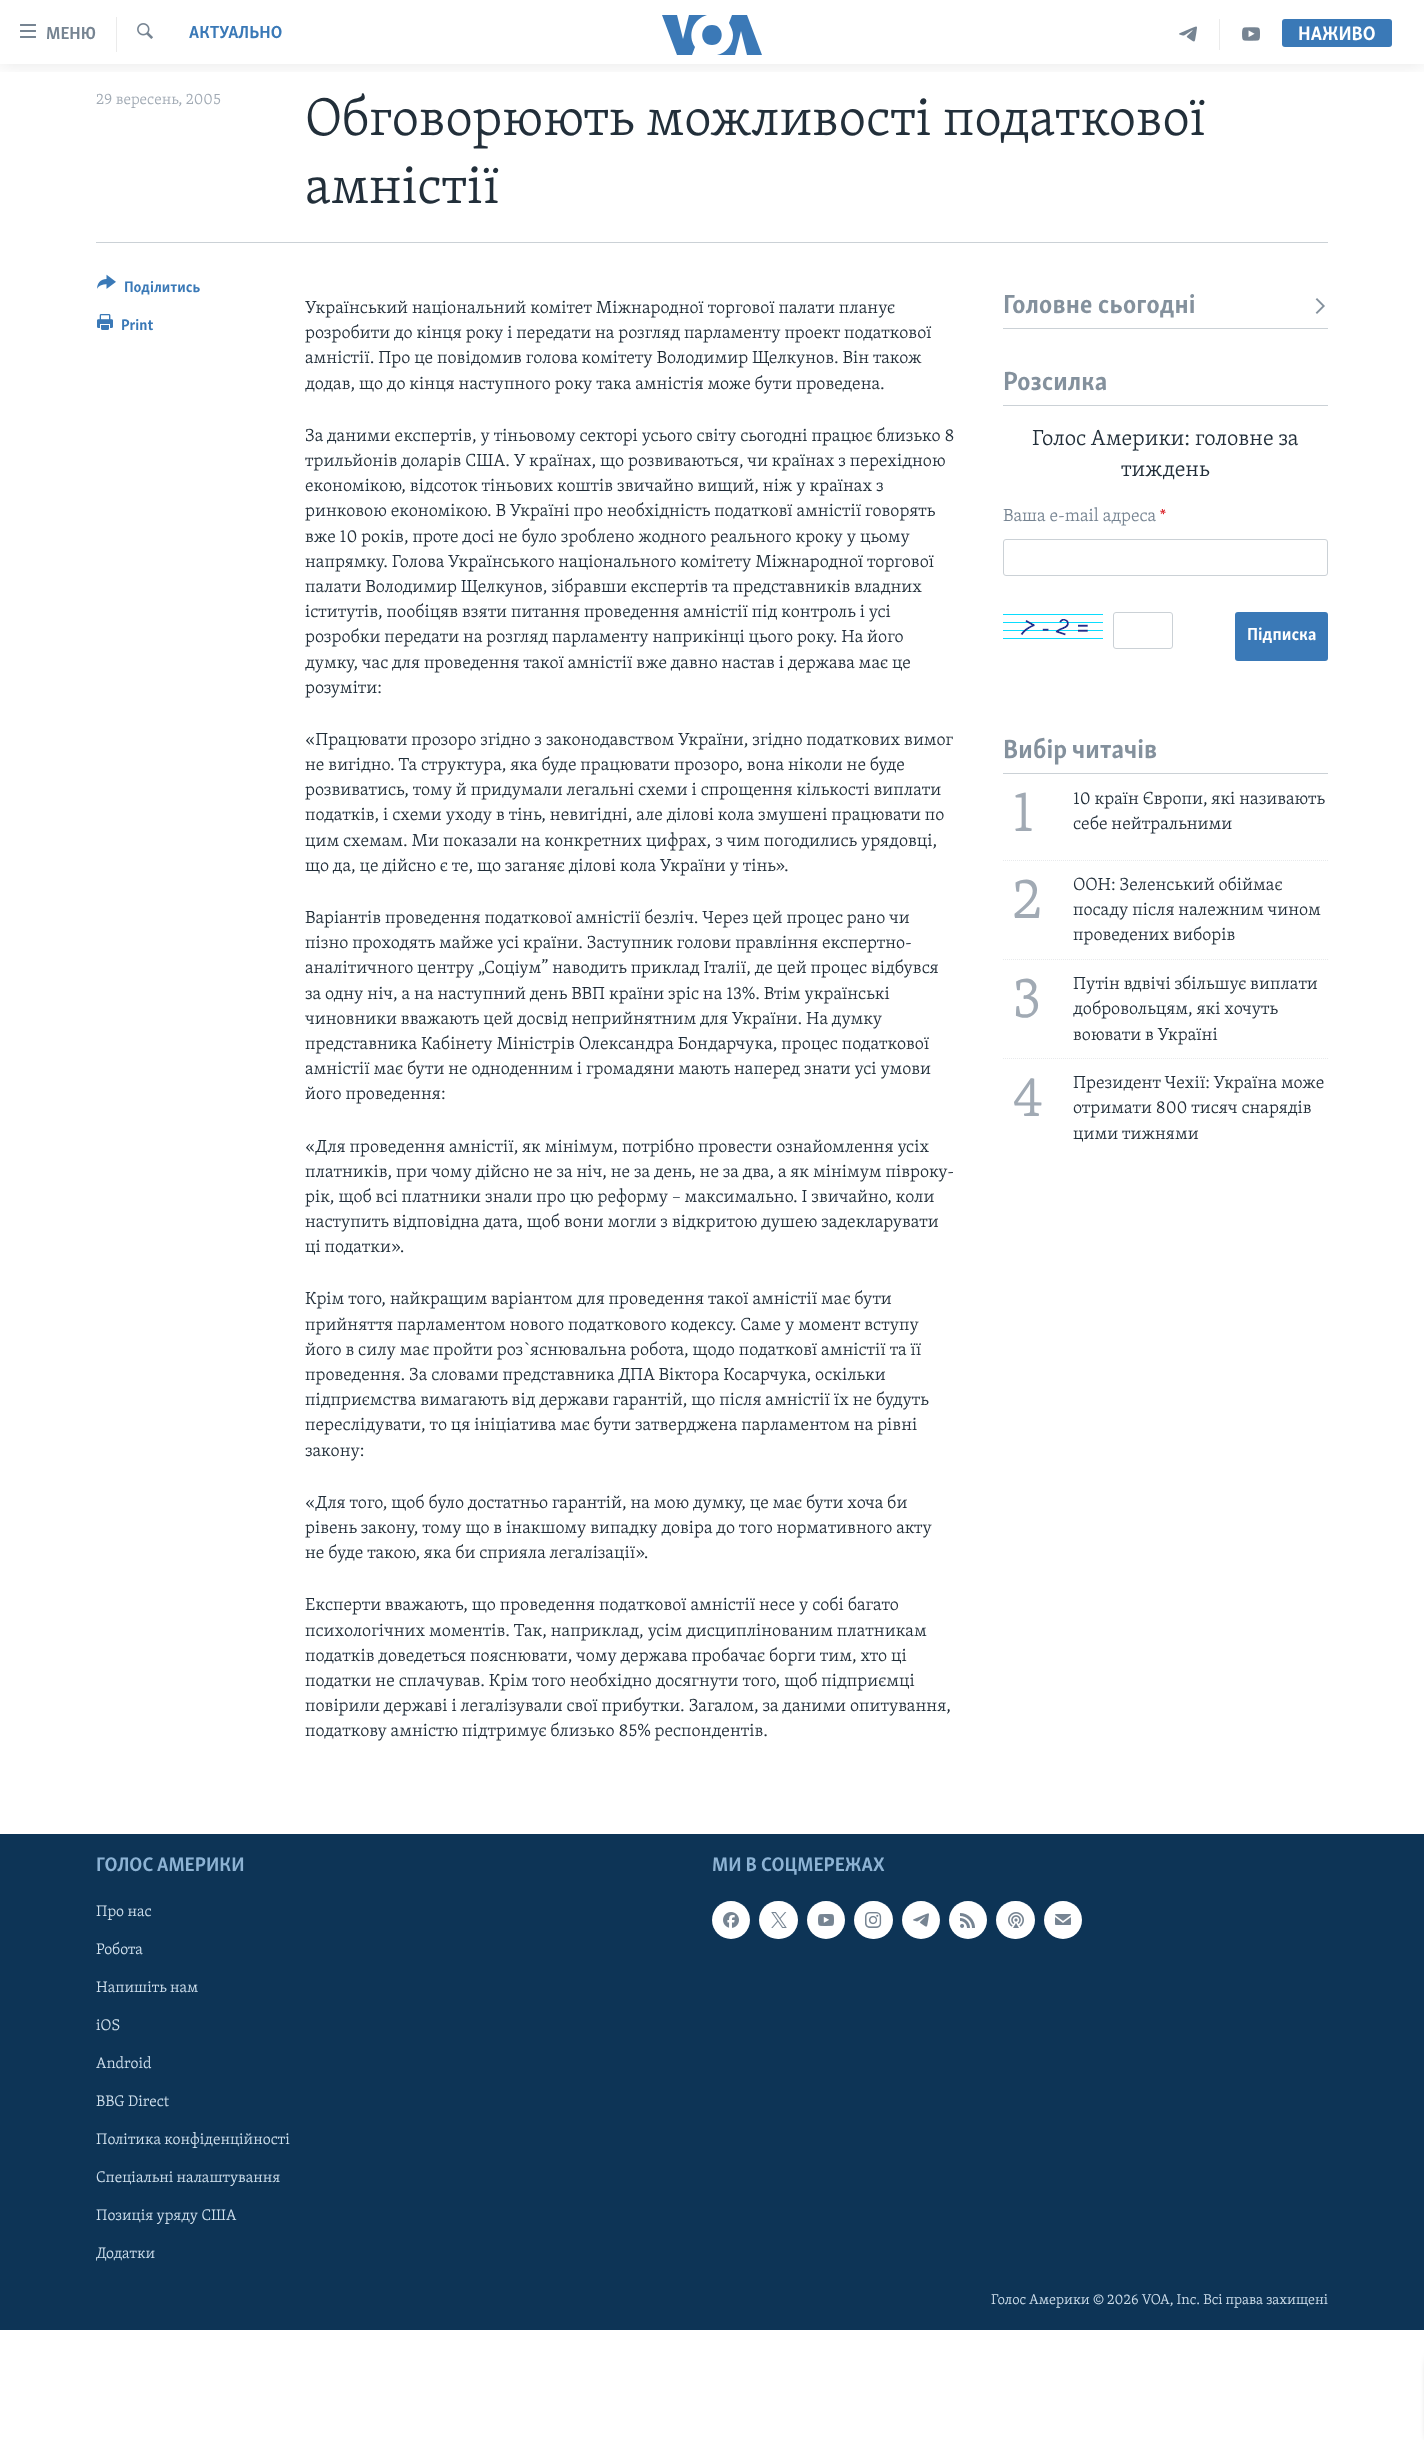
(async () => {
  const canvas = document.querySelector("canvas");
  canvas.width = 1424;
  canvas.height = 2440;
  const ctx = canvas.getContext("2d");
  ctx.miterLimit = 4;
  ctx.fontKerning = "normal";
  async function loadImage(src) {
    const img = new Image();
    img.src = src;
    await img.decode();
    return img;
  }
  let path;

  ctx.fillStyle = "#ffffff";
  ctx.fillRect(0, 0, 1424, 2440);
  ctx.save();
  ctx.beginPath();
  ctx.rect(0, 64, 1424, 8);
  ctx.clip();
  ctx.fillStyle = "rgba(0, 0, 0, 0.1)";
  ctx.filter = "blur(10px)";
  ctx.beginPath();
  ctx.rect(0, 0, 1424, 64);
  ctx.fill();
  ctx.filter = "none";
  ctx.restore();
  ctx.drawImage(await loadImage("img/1.png"), 20, 24, 16, 14);
  ctx.fillStyle = "#ebebeb";
  ctx.fillRect(116, 17, 1, 35);
  ctx.drawImage(await loadImage("img/2.png"), 137, 23, 16, 16);
  ctx.fillStyle = "#3b79b7";
  path = new Path2D("M695 47L692 55H677L662 15H677L683 39L689 15H707C693 19 687 35 695 47ZM712 25C699 25 699 45 712 45C725 45 725 25 712 25ZM733 35C733 45 726 53 717 55H735L741 31L747 55H762L747 15H732L729 23C731 27 733 31 733 35Z");
  ctx.fill(path);
  ctx.fillStyle = "#ebebeb";
  ctx.fillRect(1219, 19, 1, 31);
  ctx.drawImage(await loadImage("img/3.png"), 1179, 26, 18, 16);
  ctx.drawImage(await loadImage("img/4.png"), 1242, 27, 18, 14);
  ctx.fillStyle = "#3a79b7";
  ctx.beginPath();
  ctx.roundRect(1282, 19, 110, 28, 3);
  ctx.fill();
  ctx.fillStyle = "#cbd1d6";
  ctx.fillRect(96, 242, 1232, 1);
  ctx.drawImage(await loadImage("img/5.png"), 97, 274, 19, 15);
  ctx.drawImage(await loadImage("img/6.png"), 97, 314, 16, 16);
  ctx.fillRect(1003, 328, 325, 1);
  ctx.drawImage(await loadImage("img/7.png"), 1315, 298, 10, 16);
  ctx.fillRect(1003, 405, 325, 1);
  ctx.beginPath();
  ctx.roundRect(1003.5, 539.5, 324, 36, 2.5);
  ctx.strokeStyle = "#cbd1d6";
  ctx.stroke();
  ctx.drawImage(await loadImage("img/8.png"), 1003, 614, 100, 25);
  ctx.beginPath();
  ctx.roundRect(1113.5, 612.5, 59, 36, 2.5);
  ctx.stroke();
  ctx.fillStyle = "#3a79b7";
  ctx.beginPath();
  ctx.roundRect(1235, 612, 93, 49, 3);
  ctx.fill();
  ctx.fillStyle = "#cbd1d6";
  ctx.fillRect(1003, 773, 325, 1);
  path = new Path2D("M1003 860.5H1328");
  ctx.strokeStyle = "#e8eaec";
  ctx.setLineDash([1, 1]);
  ctx.stroke(path);
  path = new Path2D("M1003 959.5H1328");
  ctx.stroke(path);
  path = new Path2D("M1003 1058.5H1328");
  ctx.stroke(path);
  ctx.fillStyle = "rgba(0, 0, 0, 0.85)";
  ctx.filter = "blur(5px)";
  ctx.beginPath();
  ctx.roundRect(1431, 2359, 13, 81, 5);
  ctx.fill();
  ctx.filter = "none";
  ctx.fillStyle = "#0d3456";
  ctx.fillRect(0, 1834, 1424, 496);
  ctx.fillStyle = "#ffffff";
  ctx.beginPath();
  ctx.arc(731, 1920, 19, 0, Math.PI * 2);
  ctx.fill();
  ctx.drawImage(await loadImage("img/9.png"), 723, 1912, 16, 16);
  ctx.beginPath();
  ctx.roundRect(759, 1901, 39, 38, 19);
  ctx.fill();
  ctx.drawImage(await loadImage("img/10.png"), 771, 1912, 16, 16);
  ctx.beginPath();
  ctx.arc(826, 1920, 19, 0, Math.PI * 2);
  ctx.fill();
  ctx.drawImage(await loadImage("img/11.png"), 818, 1914, 16, 12);
  ctx.beginPath();
  ctx.roundRect(854, 1901, 39, 38, 19);
  ctx.fill();
  ctx.drawImage(await loadImage("img/12.png"), 865, 1912, 17, 16);
  ctx.beginPath();
  ctx.arc(921, 1920, 19, 0, Math.PI * 2);
  ctx.fill();
  ctx.drawImage(await loadImage("img/13.png"), 913, 1913, 16, 14);
  ctx.beginPath();
  ctx.arc(968, 1920, 19, 0, Math.PI * 2);
  ctx.fill();
  ctx.drawImage(await loadImage("img/14.png"), 960, 1913, 15, 15);
  ctx.beginPath();
  ctx.roundRect(996, 1901, 39, 38, 19);
  ctx.fill();
  ctx.drawImage(await loadImage("img/15.png"), 1008, 1912, 16, 16);
  ctx.beginPath();
  ctx.arc(1063, 1920, 19, 0, Math.PI * 2);
  ctx.fill();
  ctx.drawImage(await loadImage("img/16.png"), 1055, 1914, 16, 11);
  ctx.font = "bold 18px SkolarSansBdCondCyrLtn";
  ctx.fillStyle = "#768492";
  ctx.fillText("МЕНЮ", 46, 39);
  ctx.fillStyle = "#3a79b7";
  ctx.fillText("АКТУАЛЬНО", 189, 38);
  ctx.font = "bold 20px SkolarSansBdCondCyrLtn";
  ctx.fillStyle = "#ffffff";
  ctx.fillText("НАЖИВО", 1298, 40);
  ctx.font = "300 15.75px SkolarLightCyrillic";
  ctx.fillStyle = "#a1aab4";
  ctx.fillText("29 вересень, 2005", 96, 104);
  ctx.font = "300 54px SkolarLightCyrillic";
  ctx.fillStyle = "#222f3a";
  ctx.fillText("Обговорюють можливості податкової", 305, 135);
  ctx.fillText("амністії", 305, 203);
  ctx.font = "bold 15.75px SkolarSansBdCondCyrLtn";
  ctx.fillStyle = "#3a79b7";
  ctx.fillText("Поділитись", 124, 292);
  ctx.fillText("Print", 121, 330);
  ctx.font = "300 18px SkolarLightCyrillic";
  ctx.fillStyle = "#222f3a";
  for (const [text, x, y] of [
    ["Український національний комітет Міжнародної торгової палати планує", 305, 313],
    ["розробити до кінця року і передати на розгляд парламенту проект податкової", 305, 338],
    ["амністії. Про це повідомив голова комітету Володимир Щелкунов. Він також", 305, 363],
    ["додав, що до кінця наступного року така амністія може бути проведена.", 305, 389],
    ["За даними експертів, у тіньовому секторі усього світу сьогодні працює близько 8", 305, 441],
    ["трильйонів доларів США. У країнах, що розвиваються, чи країнах з перехідною", 305, 466],
    ["економікою, відсоток тіньових коштів звичайно вищий, ніж у країнах з", 305, 491],
    ["ринковою економікою. В Україні про необхідність податковї амністії говорять", 305, 516],
    ["вже 10 років, проте досі не було зроблено жодного реального кроку у цьому", 305, 542],
    ["напрямку. Голова Українського національного комітету Міжнародної торгової", 305, 567],
    ["палати Володимир Щелкунов, зібравши експертів та представників владних", 305, 592],
    ["іститутів, пообіцяв взяти питання проведення амністії під контроль і усі", 305, 617],
    ["розробки передати на розгляд парламенту наприкінці цього року. На його", 305, 642],
    ["думку, час для проведення такої амністії вже давно настав і держава має це", 305, 668],
    ["розуміти:", 305, 693],
    ["«Працювати прозоро згідно з законодавством України, згідно податкових вимог", 305, 745],
    ["не вигідно. Та структура, яка буде працювати прозоро, вона ніколи не буде", 305, 770],
    ["розвиватись, тому й придумали легальні схеми і спрощення кількості виплати", 305, 795],
    ["податків, і схеми уходу в тінь, невигідні, але ділові кола змушені працювати по", 305, 820],
    ["цим схемам. Ми показали на конкретних цифрах, з чим погодились урядовці,", 305, 846],
    ["що да, це дійсно є те, що заганяє ділові кола України у тінь».", 305, 871],
    ["Варіантів проведення податкової амністії безліч. Через цей процес рано чи", 305, 923],
    ["пізно проходять майже усі країни. Заступник голови правління експертно-", 305, 948],
    ["аналітичного центру „Соціум” наводить приклад Італії, де цей процес відбувся", 305, 973],
    ["за одну ніч, а на наступний день ВВП країни зріс на 13%. Втiм українські", 305, 999],
    ["чиновники вважають цей досвід неприйнятним для України. На думку", 305, 1024],
    ["представника Кабінету Міністрів Олександра Бондарчука, процес податкової", 305, 1049],
    ["амністії має бути не одноденним і громадяни мають наперед знати усі умови", 305, 1074],
    ["його проведення:", 305, 1099],
    ["«Для проведення амністії, як мінімум, потрібно провести ознайомлення усіх", 305, 1152],
    ["платників, при чому дійсно не за ніч, не за день, не за два, а як мінімум півроку-", 305, 1177],
    ["рік, щоб всі платники знали про цю реформу – максимально. І звичайно, коли", 305, 1202],
    ["наступить відповідна дата, щоб вони могли з відкритою душею задекларувати", 305, 1227],
    ["ці податки».", 305, 1252],
    ["Крім того, найкращим варіантом для проведення такої амністії має бути", 305, 1304],
    ["прийняття парламентом нового податкового кодексу. Саме у момент вступу", 305, 1330],
    ["його в силу має пройти роз", 305, 1355],
  ]) {
    ctx.fillText(text, x, y);
  }
  ctx.font = "18px Liberation Serif";
  ctx.fillText("`", 524, 1355);
  ctx.font = "300 18px SkolarLightCyrillic";
  for (const [text, x, y] of [
    ["яснювальна робота, щодо податковї амністії та її", 530, 1355],
    ["проведення. За словами представника ДПА Віктора Косарчука, оскільки", 305, 1380],
    ["підприємства вимагають від держави гарантій, що після амністії їх не будуть", 305, 1405],
    ["переслідувати, то ця ініціатива має бути затверджена парламентом на рівні", 305, 1430],
    ["закону:", 305, 1456],
    ["«Для того, щоб було достатньо гарантій, на мою думку, це має бути хоча би", 305, 1508],
    ["рівень закону, тому що в інакшому випадку довіра до того нормативного акту", 305, 1533],
    ["не буде такою, яка би сприяла легалізації».", 305, 1558],
    ["Експерти вважають, що проведення податкової амністії несе у собі багато", 305, 1610],
    ["психологічних моментів. Так, наприклад, усім дисциплінованим платникам", 305, 1636],
    ["податків доведеться пояснювати, чому держава пробачає борги тим, хто ці", 305, 1661],
    ["податки не сплачував. Крім того необхідно досягнути того, щоб підприємці", 305, 1686],
    ["повірили державі і легалізували свої прибутки. Загалом, за даними опитування,", 305, 1711],
    ["податкову амністю підтримує близько 85% респондентів.", 305, 1736],
  ]) {
    ctx.fillText(text, x, y);
  }
  ctx.font = "bold 27px SkolarSansBdCondCyrLtn";
  ctx.fillStyle = "#84919d";
  ctx.fillText("Головне сьогодні", 1003, 313);
  ctx.fillText("Розсилка", 1003, 390);
  ctx.font = "300 22.5px SkolarLightCyrillic";
  ctx.fillStyle = "#222f3a";
  ctx.fillText("Голос Америки: головне за", 1032, 445);
  ctx.fillText("тиждень", 1121, 476);
  ctx.font = "300 18px SkolarLightCyrillic";
  ctx.fillStyle = "#768492";
  ctx.fillText("Ваша e-mail адреса", 1003, 521);
  ctx.font = "300 15.75px SkolarLightCyrillic";
  ctx.fillStyle = "#d60109";
  ctx.fillText("*", 1160, 521);
  ctx.font = "bold 18px SkolarSansBdCondCyrLtn";
  ctx.fillStyle = "#ffffff";
  ctx.fillText("Підписка", 1247, 640);
  ctx.font = "bold 27px SkolarSansBdCondCyrLtn";
  ctx.fillStyle = "#84919d";
  ctx.fillText("Вибір читачів", 1003, 758);
  ctx.font = "300 59px SkolarLightCyrillic";
  ctx.fillStyle = "#a1aab4";
  ctx.fillText("1", 1012, 831);
  ctx.font = "300 18px SkolarLightCyrillic";
  ctx.fillStyle = "#222f3a";
  ctx.fillText("10 країн Європи, які називають", 1073, 804);
  ctx.fillText("себе нейтральними", 1073, 829);
  ctx.font = "300 59px SkolarLightCyrillic";
  ctx.fillStyle = "#a1aab4";
  ctx.fillText("2", 1012, 918);
  ctx.font = "300 18px SkolarLightCyrillic";
  ctx.fillStyle = "#222f3a";
  for (const [text, x, y] of [
    ["ООН: Зеленський обіймає", 1073, 890],
    ["посаду після належним чином", 1073, 915],
    ["проведених виборів", 1073, 940],
  ]) {
    ctx.fillText(text, x, y);
  }
  ctx.font = "300 59px SkolarLightCyrillic";
  ctx.fillStyle = "#a1aab4";
  ctx.fillText("3", 1012, 1017);
  ctx.font = "300 18px SkolarLightCyrillic";
  ctx.fillStyle = "#222f3a";
  for (const [text, x, y] of [
    ["Путін вдвічі збільшує виплати", 1073, 989],
    ["добровольцям, які хочуть", 1073, 1014],
    ["воювати в Україні", 1073, 1040],
  ]) {
    ctx.fillText(text, x, y);
  }
  ctx.font = "300 59px SkolarLightCyrillic";
  ctx.fillStyle = "#a1aab4";
  ctx.fillText("4", 1012, 1116);
  ctx.font = "300 18px SkolarLightCyrillic";
  ctx.fillStyle = "#222f3a";
  for (const [text, x, y] of [
    ["Президент Чехії: Україна може", 1073, 1088],
    ["отримати 800 тисяч снарядів", 1073, 1113],
    ["цими тижнями", 1073, 1139],
  ]) {
    ctx.fillText(text, x, y);
  }
  ctx.font = "bold 20.25px SkolarSansBdCondCyrLtn";
  ctx.fillStyle = "#8db3d4";
  ctx.fillText("ГОЛОС АМЕРИКИ", 96, 1871);
  ctx.font = "300 15.75px SkolarLightCyrillic";
  ctx.fillStyle = "#d1e1ee";
  for (const [text, x, y] of [
    ["Про нас", 96, 1916],
    ["Робота", 96, 1954],
    ["Напишіть нам", 96, 1992],
    ["iOS", 96, 2030],
    ["Android", 96, 2068],
    ["BBG Direct", 96, 2106],
    ["Політика конфіденційності", 96, 2144],
    ["Спеціальні налаштування", 96, 2182],
    ["Позиція уряду США", 96, 2220],
    ["Додатки", 96, 2258],
  ]) {
    ctx.fillText(text, x, y);
  }
  ctx.font = "bold 20.25px SkolarSansBdCondCyrLtn";
  ctx.fillStyle = "#8db3d4";
  ctx.fillText("МИ В СОЦМЕРЕЖАХ", 712, 1871);
  ctx.font = "300 14.6px SkolarLightCyrillic";
  ctx.fillStyle = "#d1e1ee";
  ctx.fillText("Голос Америки © 2026 VOA, Inc. Всі права захищені", 991, 2304);
})();
